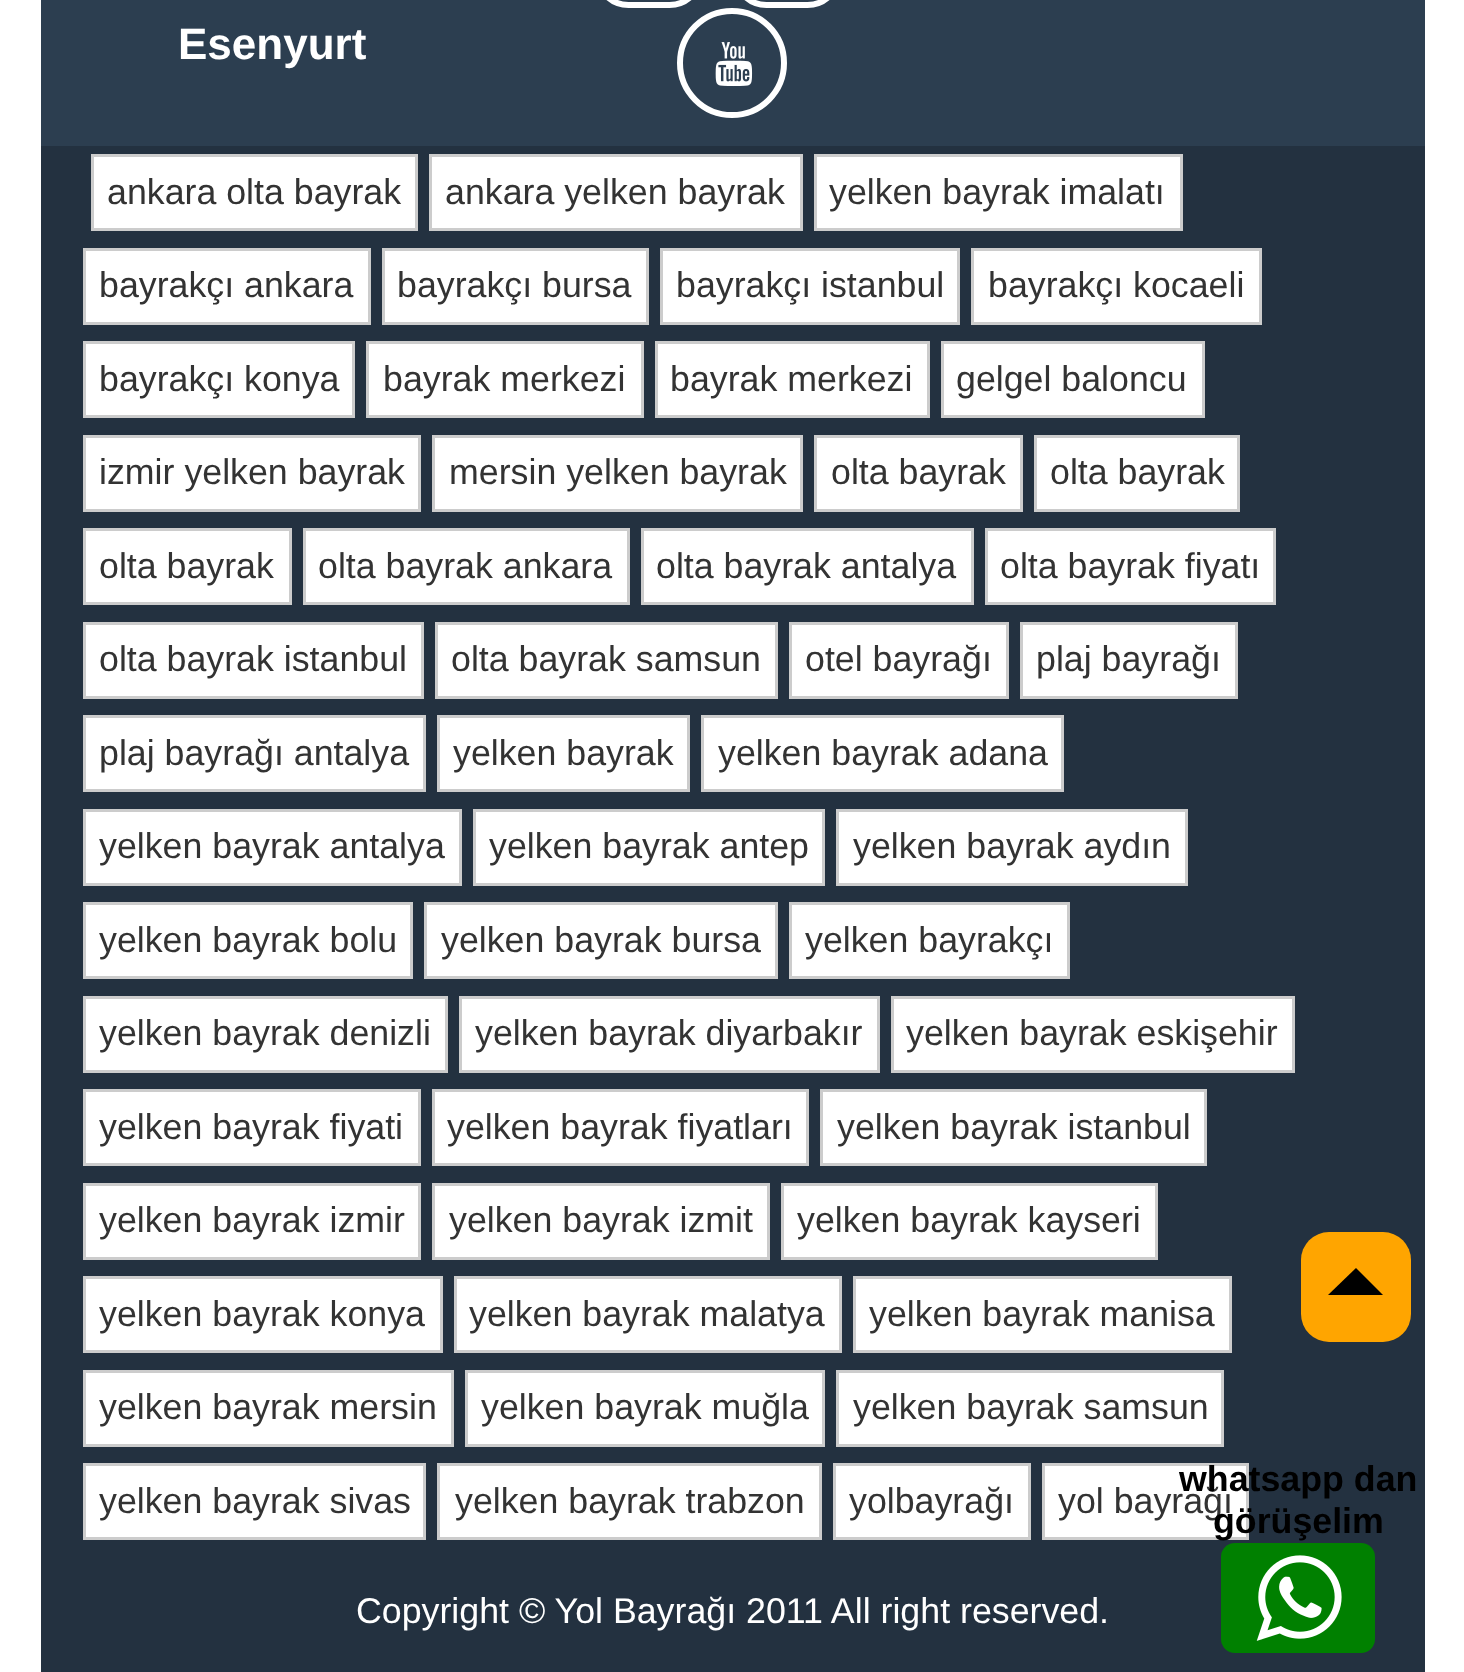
(async () => {
  const canvas = document.querySelector("canvas");
  canvas.width = 1464;
  canvas.height = 1672;
  const ctx = canvas.getContext("2d");
  ctx.miterLimit = 4;
  ctx.fontKerning = "normal";
  async function loadImage(src) {
    const img = new Image();
    img.src = src;
    await img.decode();
    return img;
  }
  let path;

  ctx.fillStyle = "#ffffff";
  ctx.fillRect(0, 0, 1464, 1672);
  ctx.fillStyle = "#2c3e50";
  ctx.fillRect(41, 0, 1384, 146);
  ctx.beginPath();
  ctx.roundRect(597, -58, 104, 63, 52);
  ctx.strokeStyle = "#ffffff";
  ctx.lineWidth = 6;
  ctx.stroke();
  ctx.beginPath();
  ctx.roundRect(735, -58, 104, 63, 52);
  ctx.stroke();
  ctx.beginPath();
  ctx.arc(732, 63, 52, 0, Math.PI * 2);
  ctx.stroke();
  ctx.drawImage(await loadImage("img/1.png"), 715, 42, 38, 45);
  ctx.fillStyle = "#233140";
  ctx.fillRect(41, 146, 1384, 1526);
  ctx.fillStyle = "#ffffff";
  ctx.beginPath();
  ctx.rect(92.5, 155.5, 324, 74);
  ctx.fill();
  ctx.strokeStyle = "#cccccc";
  ctx.lineWidth = 3;
  ctx.stroke();
  ctx.beginPath();
  ctx.rect(430.5, 155.5, 371, 74);
  ctx.fill();
  ctx.stroke();
  ctx.beginPath();
  ctx.rect(815.5, 155.5, 366, 74);
  ctx.fill();
  ctx.stroke();
  ctx.beginPath();
  ctx.rect(84.5, 249.5, 285, 74);
  ctx.fill();
  ctx.stroke();
  ctx.beginPath();
  ctx.rect(383.5, 249.5, 264, 74);
  ctx.fill();
  ctx.stroke();
  ctx.beginPath();
  ctx.rect(661.5, 249.5, 297, 74);
  ctx.fill();
  ctx.stroke();
  ctx.beginPath();
  ctx.rect(972.5, 249.5, 288, 74);
  ctx.fill();
  ctx.stroke();
  ctx.beginPath();
  ctx.rect(84.5, 342.5, 269, 74);
  ctx.fill();
  ctx.stroke();
  ctx.beginPath();
  ctx.rect(367.5, 342.5, 275, 74);
  ctx.fill();
  ctx.stroke();
  ctx.beginPath();
  ctx.rect(656.5, 342.5, 272, 74);
  ctx.fill();
  ctx.stroke();
  ctx.beginPath();
  ctx.rect(942.5, 342.5, 261, 74);
  ctx.fill();
  ctx.stroke();
  ctx.beginPath();
  ctx.rect(84.5, 436.5, 335, 74);
  ctx.fill();
  ctx.stroke();
  ctx.beginPath();
  ctx.rect(433.5, 436.5, 368, 74);
  ctx.fill();
  ctx.stroke();
  ctx.beginPath();
  ctx.rect(815.5, 436.5, 206, 74);
  ctx.fill();
  ctx.stroke();
  ctx.beginPath();
  ctx.rect(1035.5, 436.5, 203, 74);
  ctx.fill();
  ctx.stroke();
  ctx.beginPath();
  ctx.rect(84.5, 529.5, 206, 74);
  ctx.fill();
  ctx.stroke();
  ctx.beginPath();
  ctx.rect(304.5, 529.5, 324, 74);
  ctx.fill();
  ctx.stroke();
  ctx.beginPath();
  ctx.rect(642.5, 529.5, 330, 74);
  ctx.fill();
  ctx.stroke();
  ctx.beginPath();
  ctx.rect(986.5, 529.5, 288, 74);
  ctx.fill();
  ctx.stroke();
  ctx.beginPath();
  ctx.rect(84.5, 623.5, 338, 74);
  ctx.fill();
  ctx.stroke();
  ctx.beginPath();
  ctx.rect(436.5, 623.5, 340, 74);
  ctx.fill();
  ctx.stroke();
  ctx.beginPath();
  ctx.rect(790.5, 623.5, 217, 74);
  ctx.fill();
  ctx.stroke();
  ctx.beginPath();
  ctx.rect(1021.5, 623.5, 215, 74);
  ctx.fill();
  ctx.stroke();
  ctx.beginPath();
  ctx.rect(84.5, 716.5, 340, 74);
  ctx.fill();
  ctx.stroke();
  ctx.beginPath();
  ctx.rect(438.5, 716.5, 250, 74);
  ctx.fill();
  ctx.stroke();
  ctx.beginPath();
  ctx.rect(702.5, 716.5, 360, 74);
  ctx.fill();
  ctx.stroke();
  ctx.beginPath();
  ctx.rect(84.5, 810.5, 376, 74);
  ctx.fill();
  ctx.stroke();
  ctx.beginPath();
  ctx.rect(474.5, 810.5, 349, 74);
  ctx.fill();
  ctx.stroke();
  ctx.beginPath();
  ctx.rect(837.5, 810.5, 349, 74);
  ctx.fill();
  ctx.stroke();
  ctx.beginPath();
  ctx.rect(84.5, 903.5, 327, 74);
  ctx.fill();
  ctx.stroke();
  ctx.beginPath();
  ctx.rect(425.5, 903.5, 351, 74);
  ctx.fill();
  ctx.stroke();
  ctx.beginPath();
  ctx.rect(790.5, 903.5, 278, 74);
  ctx.fill();
  ctx.stroke();
  ctx.beginPath();
  ctx.rect(84.5, 997.5, 362, 74);
  ctx.fill();
  ctx.stroke();
  ctx.beginPath();
  ctx.rect(460.5, 997.5, 418, 74);
  ctx.fill();
  ctx.stroke();
  ctx.beginPath();
  ctx.rect(892.5, 997.5, 401, 74);
  ctx.fill();
  ctx.stroke();
  ctx.beginPath();
  ctx.rect(84.5, 1090.5, 335, 74);
  ctx.fill();
  ctx.stroke();
  ctx.beginPath();
  ctx.rect(433.5, 1090.5, 374, 74);
  ctx.fill();
  ctx.stroke();
  ctx.beginPath();
  ctx.rect(821.5, 1090.5, 384, 74);
  ctx.fill();
  ctx.stroke();
  ctx.beginPath();
  ctx.rect(84.5, 1184.5, 335, 74);
  ctx.fill();
  ctx.stroke();
  ctx.beginPath();
  ctx.rect(433.5, 1184.5, 335, 74);
  ctx.fill();
  ctx.stroke();
  ctx.beginPath();
  ctx.rect(782.5, 1184.5, 374, 74);
  ctx.fill();
  ctx.stroke();
  ctx.beginPath();
  ctx.rect(84.5, 1277.5, 357, 74);
  ctx.fill();
  ctx.stroke();
  ctx.beginPath();
  ctx.rect(455.5, 1277.5, 385, 74);
  ctx.fill();
  ctx.stroke();
  ctx.beginPath();
  ctx.rect(854.5, 1277.5, 376, 74);
  ctx.fill();
  ctx.stroke();
  ctx.beginPath();
  ctx.rect(84.5, 1371.5, 368, 74);
  ctx.fill();
  ctx.stroke();
  ctx.beginPath();
  ctx.rect(466.5, 1371.5, 357, 74);
  ctx.fill();
  ctx.stroke();
  ctx.beginPath();
  ctx.rect(837.5, 1371.5, 385, 74);
  ctx.fill();
  ctx.stroke();
  ctx.beginPath();
  ctx.rect(84.5, 1464.5, 340, 74);
  ctx.fill();
  ctx.stroke();
  ctx.beginPath();
  ctx.rect(438.5, 1464.5, 382, 74);
  ctx.fill();
  ctx.stroke();
  ctx.beginPath();
  ctx.rect(834.5, 1464.5, 195, 74);
  ctx.fill();
  ctx.stroke();
  ctx.beginPath();
  ctx.rect(1043.5, 1464.5, 204, 74);
  ctx.fill();
  ctx.stroke();
  ctx.fillStyle = "#ffa500";
  ctx.beginPath();
  ctx.roundRect(1301, 1232, 110, 110, 28);
  ctx.fill();
  ctx.fillStyle = "#000000";
  path = new Path2D("M1383 1295H1328L1356 1268Z");
  ctx.fill(path);
  ctx.fillStyle = "#008000";
  ctx.beginPath();
  ctx.roundRect(1221, 1543, 154, 110, 14);
  ctx.fill();
  ctx.drawImage(await loadImage("img/2.png"), 1256, 1555, 86, 86);
  ctx.font = "bold 44px Liberation Sans";
  ctx.fillStyle = "#ffffff";
  ctx.fillText("Esenyurt", 178, 59);
  ctx.font = "35.75px Liberation Sans";
  ctx.fillStyle = "#333333";
  for (const [text, x, y] of [
    ["ankara olta bayrak", 107, 204],
    ["ankara yelken bayrak", 445, 204],
    ["yelken bayrak imalatı", 829, 204],
    ["bayrakçı ankara", 99, 297],
    ["bayrakçı bursa", 397, 297],
    ["bayrakçı istanbul", 676, 297],
    ["bayrakçı kocaeli", 988, 297],
    ["bayrakçı konya", 99, 391],
    ["bayrak merkezi", 383, 391],
    ["bayrak merkezi", 670, 391],
    ["gelgel baloncu", 956, 391],
    ["izmir yelken bayrak", 99, 484],
    ["mersin yelken bayrak", 449, 484],
    ["olta bayrak", 831, 484],
    ["olta bayrak", 1050, 484],
    ["olta bayrak", 99, 578],
    ["olta bayrak ankara", 318, 578],
    ["olta bayrak antalya", 656, 578],
    ["olta bayrak fiyatı", 1000, 578],
    ["olta bayrak istanbul", 99, 671],
    ["olta bayrak samsun", 451, 671],
    ["otel bayrağı", 805, 671],
    ["plaj bayrağı", 1036, 671],
    ["plaj bayrağı antalya", 99, 765],
    ["yelken bayrak", 453, 765],
    ["yelken bayrak adana", 718, 765],
    ["yelken bayrak antalya", 99, 858],
    ["yelken bayrak antep", 489, 858],
    ["yelken bayrak aydın", 853, 858],
    ["yelken bayrak bolu", 99, 952],
    ["yelken bayrak bursa", 441, 952],
    ["yelken bayrakçı", 805, 952],
    ["yelken bayrak denizli", 99, 1045],
    ["yelken bayrak diyarbakır", 475, 1045],
    ["yelken bayrak eskişehir", 906, 1045],
    ["yelken bayrak fiyati", 99, 1139],
    ["yelken bayrak fiyatları", 447, 1139],
    ["yelken bayrak istanbul", 837, 1139],
    ["yelken bayrak izmir", 99, 1232],
    ["yelken bayrak izmit", 449, 1232],
    ["yelken bayrak kayseri", 797, 1232],
    ["yelken bayrak konya", 99, 1326],
    ["yelken bayrak malatya", 469, 1326],
    ["yelken bayrak manisa", 869, 1326],
    ["yelken bayrak mersin", 99, 1419],
    ["yelken bayrak muğla", 481, 1419],
    ["yelken bayrak samsun", 853, 1419],
    ["yelken bayrak sivas", 99, 1513],
    ["yelken bayrak trabzon", 455, 1513],
    ["yolbayrağı", 849, 1513],
    ["yol bayrağı", 1058, 1513],
  ]) {
    ctx.fillText(text, x, y);
  }
  ctx.fillStyle = "#ffffff";
  ctx.fillText("Copyright © Yol Bayrağı 2011 All right reserved.", 356, 1623);
  ctx.font = "bold 35.75px Liberation Sans";
  ctx.fillStyle = "#000000";
  ctx.fillText("whatsapp dan", 1179, 1491);
  ctx.fillText("görüşelim", 1213, 1533);
})();
